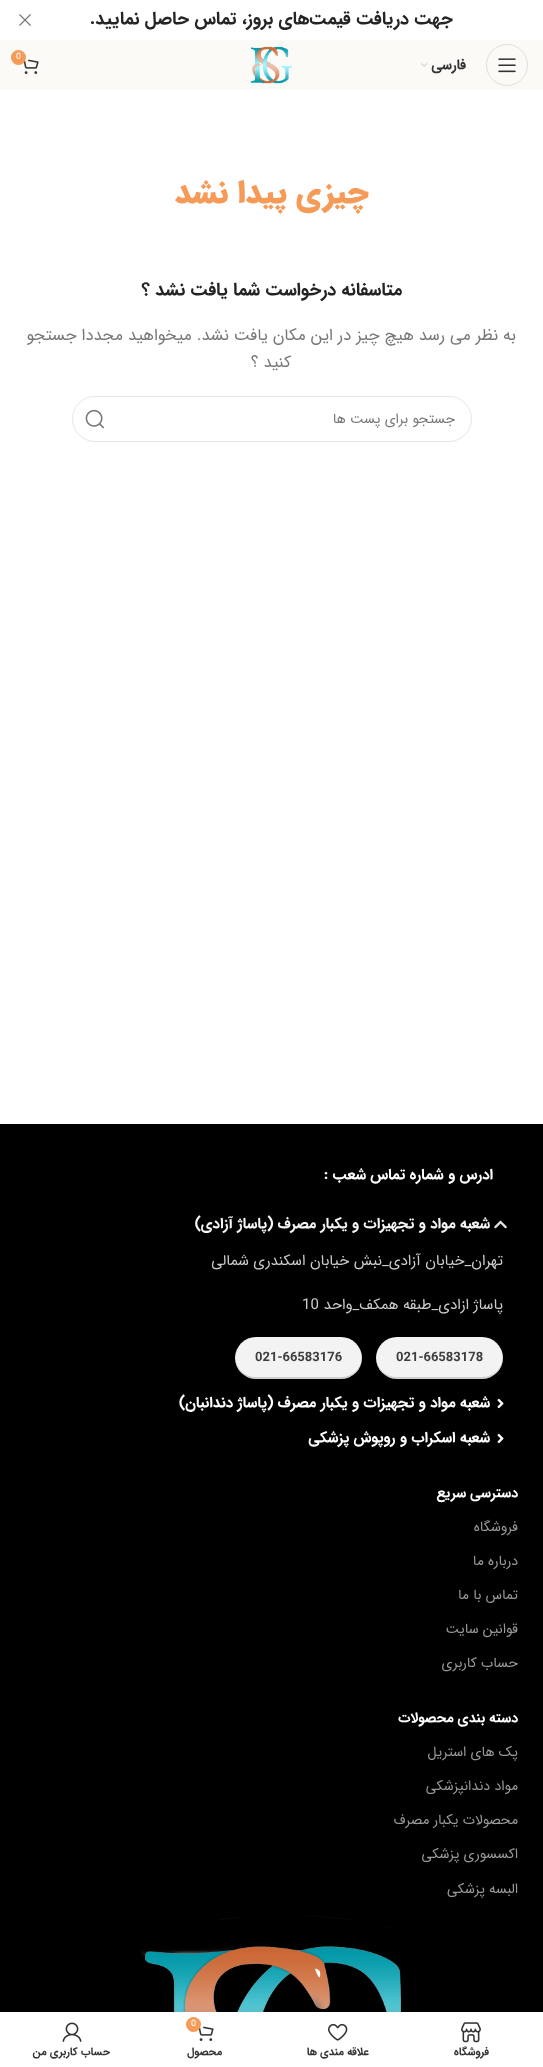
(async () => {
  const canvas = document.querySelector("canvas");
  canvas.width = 543;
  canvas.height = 2067;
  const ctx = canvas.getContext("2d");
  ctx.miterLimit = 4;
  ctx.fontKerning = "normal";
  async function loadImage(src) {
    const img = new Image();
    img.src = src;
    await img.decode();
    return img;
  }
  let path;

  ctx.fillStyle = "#ffffff";
  ctx.fillRect(0, 0, 543, 2067);
  ctx.drawImage(await loadImage("img/1.png"), 19, 14, 12, 12);
  path = new Path2D("M19 26C15.5 22.5 15.5 17.5 19 14");
  ctx.strokeStyle = "#ffffff";
  ctx.stroke(path);
  ctx.fillStyle = "#fbfaf7";
  ctx.fillRect(0, 40, 543, 50);
  ctx.drawImage(await loadImage("img/2.png"), 250, 46, 42, 38);
  ctx.drawImage(await loadImage("img/3.png"), 23, 59, 16, 15);
  ctx.fillStyle = "#f59a57";
  ctx.beginPath();
  ctx.arc(18.5, 57.5, 7.5, 0, Math.PI * 2);
  ctx.fill();
  ctx.beginPath();
  ctx.arc(507, 65, 20.5, 0, Math.PI * 2);
  ctx.strokeStyle = "#e0e0dd";
  ctx.stroke();
  ctx.drawImage(await loadImage("img/4.png"), 498, 58, 18, 15);
  ctx.drawImage(await loadImage("img/5.png"), 421, 63, 7, 4);
  ctx.beginPath();
  ctx.roundRect(72.5, 396.5, 399, 45, 22.5);
  ctx.strokeStyle = "#e6e6e6";
  ctx.stroke();
  ctx.drawImage(await loadImage("img/6.png"), 85, 409, 19, 20);
  ctx.fillStyle = "#000000";
  ctx.fillRect(0, 1124, 543, 888);
  ctx.drawImage(await loadImage("img/7.png"), 494, 1220, 13, 9);
  ctx.fillStyle = "#f3f3f3";
  ctx.beginPath();
  ctx.roundRect(376, 1337, 127, 42, 21);
  ctx.fill();
  ctx.fillStyle = "rgba(0, 0, 0, 0.15)";
  path = new Path2D("M376 1357C376 1367 383 1377 393 1379H411H486C496 1377 503 1367 503 1357C502 1369 494 1377 482 1377H397C385 1377 377 1369 376 1357Z");
  ctx.fill(path);
  ctx.fillStyle = "#f3f3f3";
  ctx.beginPath();
  ctx.roundRect(235, 1337, 127, 42, 21);
  ctx.fill();
  ctx.fillStyle = "rgba(0, 0, 0, 0.15)";
  path = new Path2D("M235 1357C235 1367 242 1377 252 1379H270H345C355 1377 362 1367 362 1357C361 1369 353 1377 341 1377H256C244 1377 236 1369 235 1357Z");
  ctx.fill(path);
  ctx.drawImage(await loadImage("img/8.png"), 497, 1398, 7, 11);
  ctx.drawImage(await loadImage("img/8.png"), 497, 1433, 7, 11);
  ctx.drawImage(await loadImage("img/9.png"), 140, 1915, 261, 97);
  ctx.fillStyle = "rgba(0, 0, 0, 0.12)";
  ctx.filter = "blur(4.5px)";
  ctx.beginPath();
  ctx.rect(0, 2012, 543, 55);
  ctx.fill();
  ctx.filter = "none";
  ctx.fillStyle = "#ffffff";
  ctx.fillRect(0, 2012, 543, 55);
  ctx.drawImage(await loadImage("img/10.png"), 461, 2022, 20, 21);
  ctx.drawImage(await loadImage("img/11.png"), 328, 2023, 20, 18);
  ctx.drawImage(await loadImage("img/12.png"), 198, 2026, 16, 15);
  ctx.fillStyle = "#f59a57";
  ctx.beginPath();
  ctx.arc(193.5, 2024.5, 7.5, 0, Math.PI * 2);
  ctx.fill();
  ctx.drawImage(await loadImage("img/13.png"), 62, 2022, 20, 20);
  ctx.direction = "rtl";
  ctx.font = "bold 18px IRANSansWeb";
  ctx.fillStyle = "#242424";
  ctx.fillText("جهت دریافت قیمت‌های بروز، تماس حاصل نمایید.", 453, 24);
  ctx.direction = "ltr";
  ctx.font = "9px IRANSansWeb";
  ctx.fillStyle = "#ffffff";
  ctx.fillText("0", 16, 59);
  ctx.direction = "rtl";
  ctx.font = "bold 14px IRANSansWeb";
  ctx.fillStyle = "#333333";
  ctx.fillText("فارسی", 466, 69);
  ctx.font = "900 32px IRANSansWeb";
  ctx.fillStyle = "#f59a57";
  ctx.fillText("چیزی پیدا نشد", 369, 202);
  ctx.font = "bold 18px IRANSansWeb";
  ctx.fillStyle = "#242424";
  ctx.fillText("متاسفانه درخواست شما یافت نشد ؟", 402, 295);
  ctx.font = "16.5px IRANSansWeb";
  ctx.fillStyle = "#777777";
  ctx.fillText("به نظر می رسد هیچ چیز در این مکان یافت نشد. میخواهید مجددا جستجو", 516, 340);
  ctx.fillText("کنید ؟", 291, 367);
  ctx.font = "14px IRANSansWeb";
  ctx.fillText("جستجو برای پست ها", 455, 423);
  ctx.font = "bold 15px IRANSansWeb";
  ctx.fillStyle = "#ffffff";
  ctx.fillText("ادرس و شماره تماس شعب :", 493, 1179);
  ctx.fillStyle = "#f6f6f6";
  ctx.fillText("شعبه مواد و تجهيزات و يكبار مصرف (پاساژ آزادی)", 490, 1228);
  ctx.font = "15px IRANSansWeb";
  ctx.fillStyle = "#cccccc";
  ctx.fillText("تهران_خيابان آزادی_نبش خيابان اسكندری شمالی", 503, 1265);
  ctx.fillText("پاساژ ازادی_طبقه همكف_واحد", 503, 1309);
  ctx.direction = "ltr";
  ctx.fillText("10", 302, 1309);
  ctx.font = "bold 13px IRANSansWeb";
  ctx.fillStyle = "#3e3e3e";
  ctx.fillText("021-66583178", 396, 1361);
  ctx.fillText("021-66583176", 255, 1361);
  ctx.direction = "rtl";
  ctx.font = "bold 15px IRANSansWeb";
  ctx.fillStyle = "#ffffff";
  ctx.fillText("شعبه مواد و تجهيزات و يكبار مصرف (پاساژ دندانبان)", 490, 1407);
  ctx.fillText("شعبه اسكراب و روپوش پزشكی", 490, 1442);
  ctx.font = "bold 14px IRANSansWeb";
  ctx.fillText("دسترسی سریع", 518, 1497);
  ctx.font = "14px IRANSansWeb";
  ctx.fillStyle = "#999999";
  for (const [text, x, y] of [
    ["فروشگاه", 518, 1531],
    ["درباره ما", 518, 1565],
    ["تماس با ما", 518, 1599],
    ["قوانین سایت", 518, 1633],
    ["حساب کاربری", 518, 1667],
  ]) {
    ctx.fillText(text, x, y);
  }
  ctx.font = "bold 14px IRANSansWeb";
  ctx.fillStyle = "#ffffff";
  ctx.fillText("دسته بندی محصولات", 518, 1722);
  ctx.font = "14px IRANSansWeb";
  ctx.fillStyle = "#999999";
  for (const [text, x, y] of [
    ["پک های استریل", 518, 1756],
    ["مواد دندانپزشکی", 518, 1790],
    ["محصولات یکبار مصرف", 518, 1824],
    ["اکسسوری پزشکی", 518, 1858],
    ["البسه پزشکی", 518, 1893],
  ]) {
    ctx.fillText(text, x, y);
  }
  ctx.font = "bold 11px IRANSansWeb";
  ctx.fillStyle = "#333333";
  ctx.fillText("فروشگاه", 489, 2055);
  ctx.fillText("علاقه مندی ها", 369, 2055);
  ctx.direction = "ltr";
  ctx.font = "9px IRANSansWeb";
  ctx.fillStyle = "#ffffff";
  ctx.fillText("0", 191, 2026);
  ctx.direction = "rtl";
  ctx.font = "bold 11px IRANSansWeb";
  ctx.fillStyle = "#333333";
  ctx.fillText("محصول", 222, 2055);
  ctx.fillText("حساب کاربری من", 110, 2055);
})();
